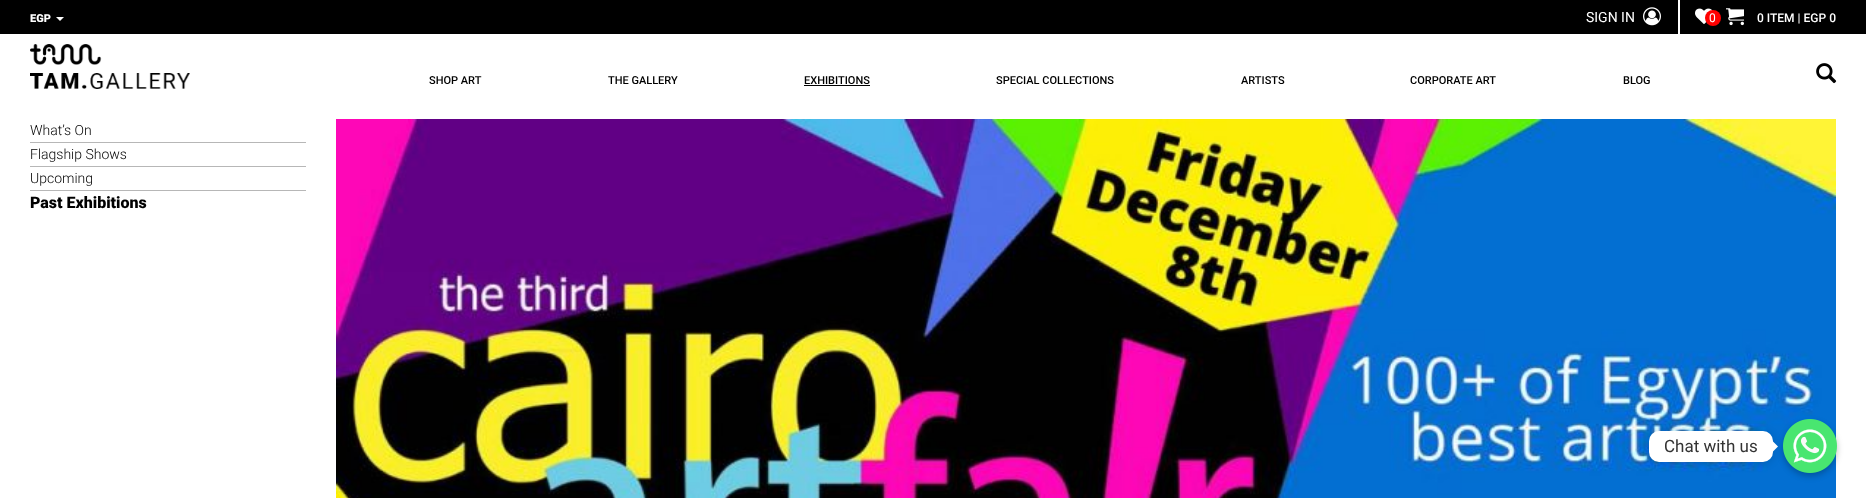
(async () => {
  const canvas = document.querySelector("canvas");
  canvas.width = 1866;
  canvas.height = 498;
  const ctx = canvas.getContext("2d");
  ctx.miterLimit = 4;
  ctx.fontKerning = "normal";
  async function loadImage(src) {
    const img = new Image();
    img.src = src;
    await img.decode();
    return img;
  }
  let path;

  ctx.fillStyle = "#ffffff";
  ctx.fillRect(0, 0, 1866, 498);
  ctx.fillStyle = "#000000";
  ctx.fillRect(0, 0, 1866, 34);
  ctx.fillStyle = "#ffffff";
  path = new Path2D("M56 17H64L60 21Z");
  ctx.fill(path);
  ctx.drawImage(await loadImage("img/1.png"), 1643, 7, 18, 19);
  ctx.fillRect(1678, 0, 2, 37);
  ctx.drawImage(await loadImage("img/2.png"), 1695, 8, 18, 16);
  ctx.fillStyle = "#ff0000";
  ctx.beginPath();
  ctx.arc(1713, 18, 8, 0, Math.PI * 2);
  ctx.fill();
  ctx.drawImage(await loadImage("img/3.png"), 1726, 8, 18, 18);
  ctx.drawImage(await loadImage("img/4.png"), 30, 44, 160, 45);
  ctx.fillStyle = "#000000";
  ctx.fillRect(804, 85, 66, 1);
  ctx.drawImage(await loadImage("img/5.png"), 1816, 63, 21, 21);
  for (const [x, y, w, h, color] of [
    [30, 142, 276, 1, "#b7b7b7"],
    [30, 166, 276, 1, "#b7b7b7"],
    [30, 190, 276, 1, "#b7b7b7"],
  ]) {
    ctx.fillStyle = color;
    ctx.fillRect(x, y, w, h);
  }
  ctx.drawImage(await loadImage("img/6.png"), 336, 119, 1500, 379);
  ctx.fillStyle = "rgba(0, 0, 0, 0.25)";
  ctx.filter = "blur(3px)";
  ctx.beginPath();
  ctx.roundRect(1783, 422, 54, 54, 27);
  ctx.fill();
  ctx.filter = "none";
  ctx.drawImage(await loadImage("img/7.png"), 1783, 419, 54, 54);
  ctx.fillStyle = "rgba(0, 0, 0, 0.15)";
  ctx.filter = "blur(4px)";
  ctx.beginPath();
  ctx.roundRect(1649, 432, 124, 31, 10);
  ctx.fill();
  ctx.filter = "none";
  ctx.fillStyle = "#ffffff";
  ctx.beginPath();
  ctx.roundRect(1649, 431, 124, 31, 10);
  ctx.fill();
  path = new Path2D("M1773 451.5V441.5L1778 446.5Z");
  ctx.fill(path);
  ctx.font = "900 11px Roboto";
  ctx.fillText("EGP", 30, 22);
  ctx.font = "14px Roboto";
  ctx.fillText("SIGN IN", 1586, 22);
  ctx.font = "12px Roboto";
  ctx.fillText("0", 1709, 22);
  ctx.font = "500 12px Roboto";
  ctx.fillText("0 ITEM | EGP 0", 1757, 22);
  ctx.font = "500 11px Roboto";
  ctx.fillStyle = "#000000";
  for (const [text, x, y] of [
    ["SHOP ART", 429, 84],
    ["THE GALLERY", 608, 84],
    ["EXHIBITIONS", 804, 84],
    ["SPECIAL COLLECTIONS", 996, 84],
    ["ARTISTS", 1241, 84],
    ["CORPORATE ART", 1410, 84],
    ["BLOG", 1623, 84],
  ]) {
    ctx.fillText(text, x, y);
  }
  ctx.font = "300 14px Roboto";
  for (const [text, x, y] of [
    ["What’s On", 30, 135],
    ["Flagship Shows", 30, 159],
    ["Upcoming", 30, 183],
  ]) {
    ctx.fillText(text, x, y);
  }
  ctx.font = "900 16px Roboto";
  ctx.fillText("Past Exhibitions", 30, 208);
  ctx.font = "17px Roboto";
  ctx.fillStyle = "#333333";
  ctx.fillText("Chat with us", 1664, 452);
})();
